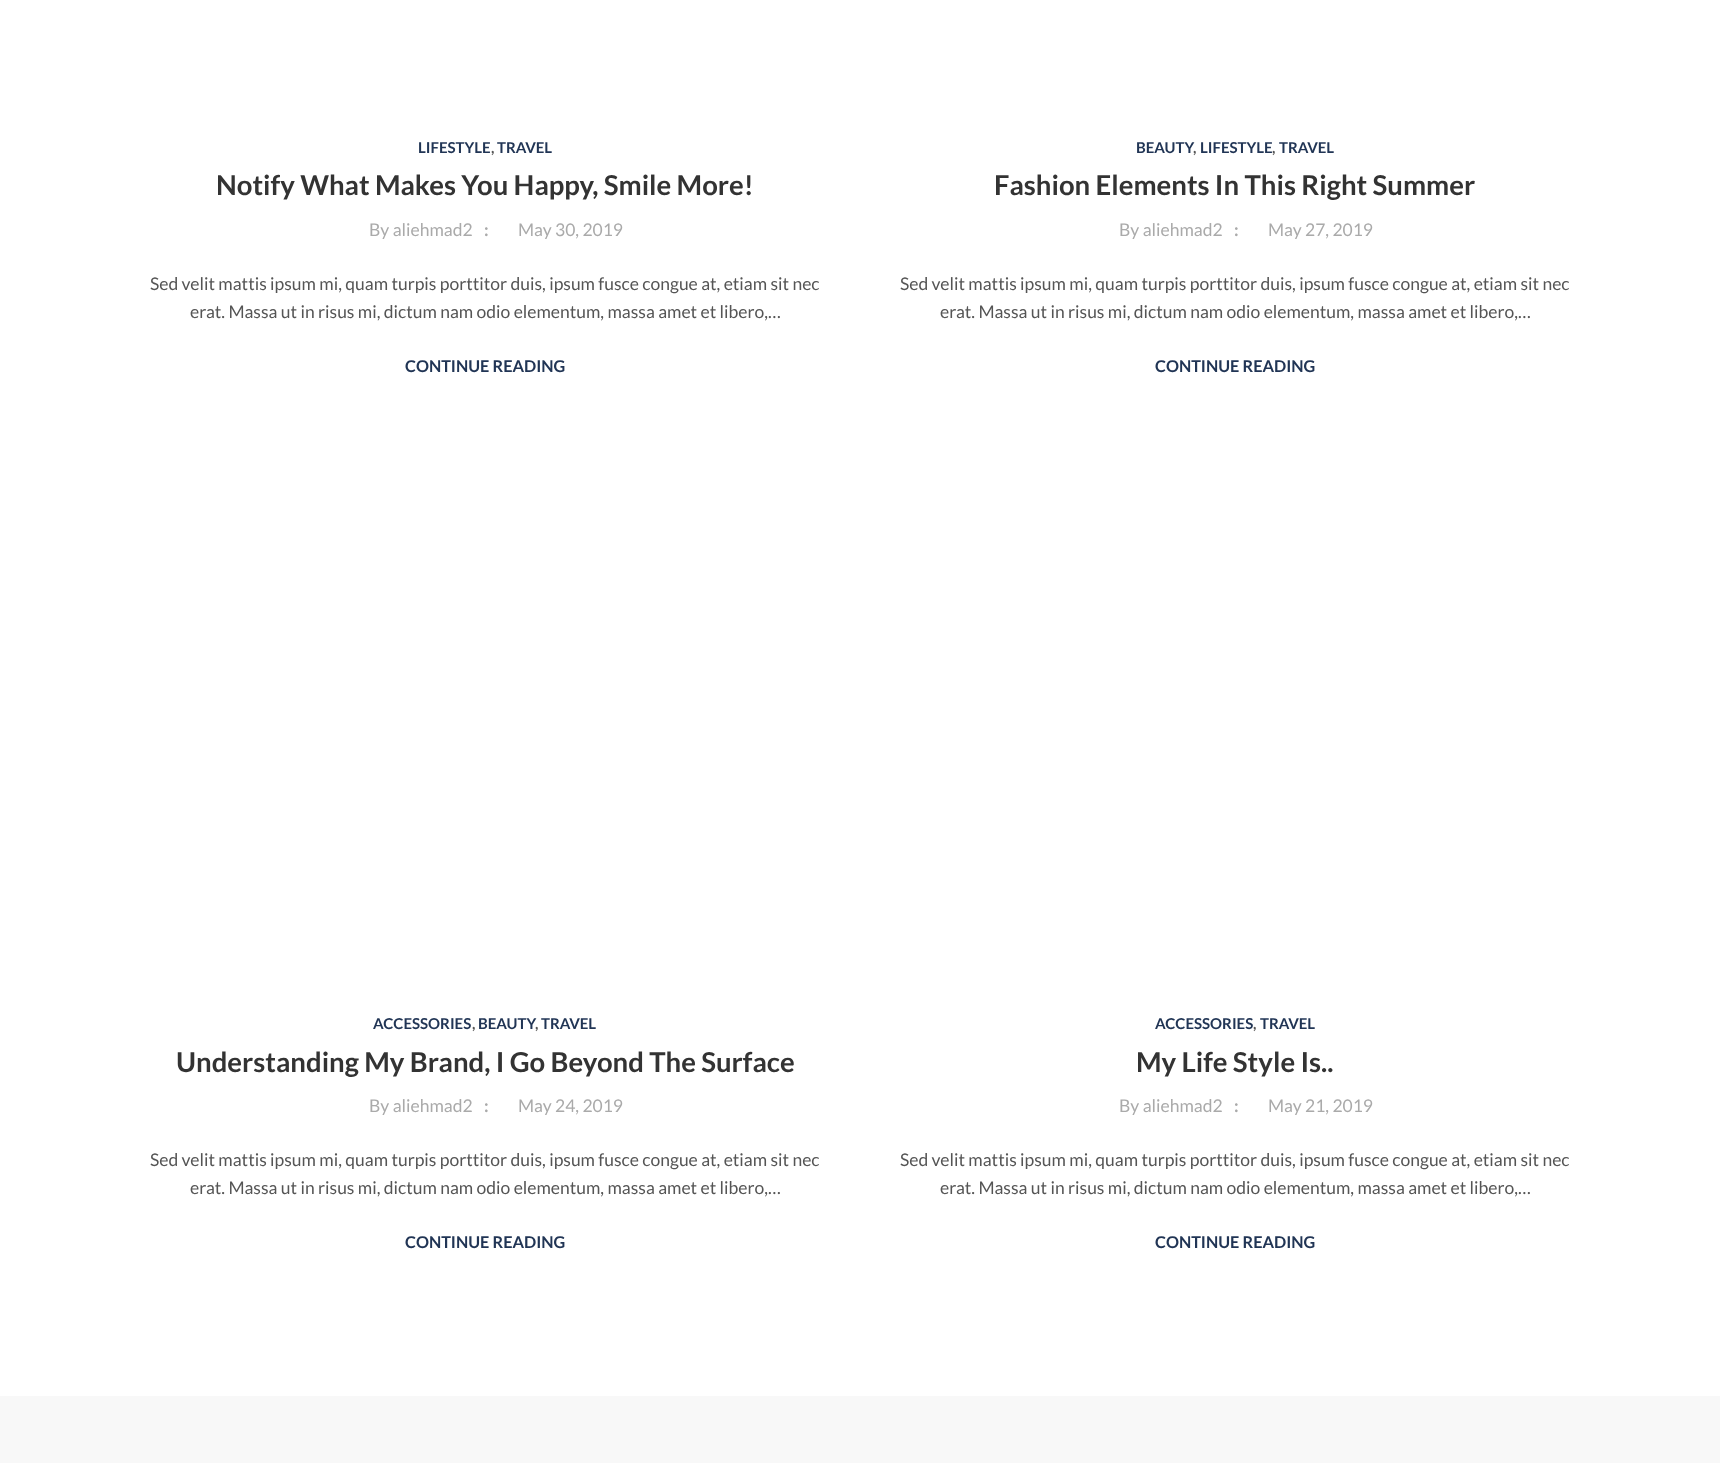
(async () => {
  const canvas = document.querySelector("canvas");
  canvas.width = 1720;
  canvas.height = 1463;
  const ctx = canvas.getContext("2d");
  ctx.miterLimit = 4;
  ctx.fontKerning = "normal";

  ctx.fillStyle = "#ffffff";
  ctx.fillRect(0, 0, 1720, 1463);
  ctx.fillStyle = "#f8f8f8";
  ctx.fillRect(0, 1396, 1720, 67);
  ctx.font = "bold 15px Lato";
  ctx.fillStyle = "#213555";
  ctx.fillText("LIFESTYLE", 418, 153);
  ctx.fillStyle = "#555555";
  ctx.fillText(",", 491, 153);
  ctx.fillStyle = "#213555";
  ctx.fillText("TRAVEL", 497, 153);
  ctx.font = "bold 27.5px Lato";
  ctx.fillStyle = "#333333";
  ctx.fillText("Notify What Makes You Happy, Smile More!", 216, 195);
  ctx.font = "17.5px Lato";
  ctx.fillStyle = "#aaaaaa";
  ctx.fillText("By aliehmad2", 369, 236);
  ctx.font = "bold 17.5px Lato";
  ctx.fillText(":", 484, 236);
  ctx.font = "17.5px Lato";
  ctx.fillText("May 30, 2019", 518, 236);
  ctx.fillStyle = "#555555";
  ctx.fillText("Sed velit mattis ipsum mi, quam turpis porttitor duis, ipsum fusce congue at, etiam sit nec", 150, 290);
  ctx.fillText("erat. Massa ut in risus mi, dictum nam odio elementum, massa amet et libero,…", 190, 318);
  ctx.font = "bold 16.25px Lato";
  ctx.fillStyle = "#213555";
  ctx.fillText("CONTINUE READING", 405, 372);
  ctx.font = "bold 15px Lato";
  for (const [text, x, y] of [
    ["BEAUTY", 1136, 153],
    ["LIFESTYLE", 1200, 153],
    ["TRAVEL", 1279, 153],
  ]) {
    ctx.fillText(text, x, y);
  }
  ctx.fillStyle = "#555555";
  ctx.fillText(",", 1193, 153);
  ctx.fillText(",", 1272, 153);
  ctx.font = "bold 27.5px Lato";
  ctx.fillStyle = "#333333";
  ctx.fillText("Fashion Elements In This Right Summer", 994, 195);
  ctx.font = "17.5px Lato";
  ctx.fillStyle = "#aaaaaa";
  ctx.fillText("By aliehmad2", 1119, 236);
  ctx.font = "bold 17.5px Lato";
  ctx.fillText(":", 1234, 236);
  ctx.font = "17.5px Lato";
  ctx.fillText("May 27, 2019", 1268, 236);
  ctx.fillStyle = "#555555";
  ctx.fillText("Sed velit mattis ipsum mi, quam turpis porttitor duis, ipsum fusce congue at, etiam sit nec", 900, 290);
  ctx.fillText("erat. Massa ut in risus mi, dictum nam odio elementum, massa amet et libero,…", 940, 318);
  ctx.font = "bold 16.25px Lato";
  ctx.fillStyle = "#213555";
  ctx.fillText("CONTINUE READING", 1155, 372);
  ctx.font = "bold 15px Lato";
  ctx.fillText("ACCESSORIES", 373, 1029);
  ctx.fillStyle = "#555555";
  ctx.fillText(",", 472, 1029);
  ctx.fillStyle = "#213555";
  ctx.fillText("BEAUTY", 478, 1029);
  ctx.fillText("TRAVEL", 541, 1029);
  ctx.fillStyle = "#555555";
  ctx.fillText(",", 535, 1029);
  ctx.font = "bold 27.5px Lato";
  ctx.fillStyle = "#333333";
  ctx.fillText("Understanding My Brand, I Go Beyond The Surface", 176, 1072);
  ctx.font = "17.5px Lato";
  ctx.fillStyle = "#aaaaaa";
  ctx.fillText("By aliehmad2", 369, 1112);
  ctx.font = "bold 17.5px Lato";
  ctx.fillText(":", 484, 1112);
  ctx.font = "17.5px Lato";
  ctx.fillText("May 24, 2019", 518, 1112);
  ctx.fillStyle = "#555555";
  ctx.fillText("Sed velit mattis ipsum mi, quam turpis porttitor duis, ipsum fusce congue at, etiam sit nec", 150, 1166);
  ctx.fillText("erat. Massa ut in risus mi, dictum nam odio elementum, massa amet et libero,…", 190, 1194);
  ctx.font = "bold 16.25px Lato";
  ctx.fillStyle = "#213555";
  ctx.fillText("CONTINUE READING", 405, 1248);
  ctx.font = "bold 15px Lato";
  ctx.fillText("ACCESSORIES", 1155, 1029);
  ctx.fillStyle = "#555555";
  ctx.fillText(",", 1253, 1029);
  ctx.fillStyle = "#213555";
  ctx.fillText("TRAVEL", 1260, 1029);
  ctx.font = "bold 27.5px Lato";
  ctx.fillStyle = "#333333";
  ctx.fillText("My Life Style Is..", 1136, 1072);
  ctx.font = "17.5px Lato";
  ctx.fillStyle = "#aaaaaa";
  ctx.fillText("By aliehmad2", 1119, 1112);
  ctx.font = "bold 17.5px Lato";
  ctx.fillText(":", 1234, 1112);
  ctx.font = "17.5px Lato";
  ctx.fillText("May 21, 2019", 1268, 1112);
  ctx.fillStyle = "#555555";
  ctx.fillText("Sed velit mattis ipsum mi, quam turpis porttitor duis, ipsum fusce congue at, etiam sit nec", 900, 1166);
  ctx.fillText("erat. Massa ut in risus mi, dictum nam odio elementum, massa amet et libero,…", 940, 1194);
  ctx.font = "bold 16.25px Lato";
  ctx.fillStyle = "#213555";
  ctx.fillText("CONTINUE READING", 1155, 1248);
})();
